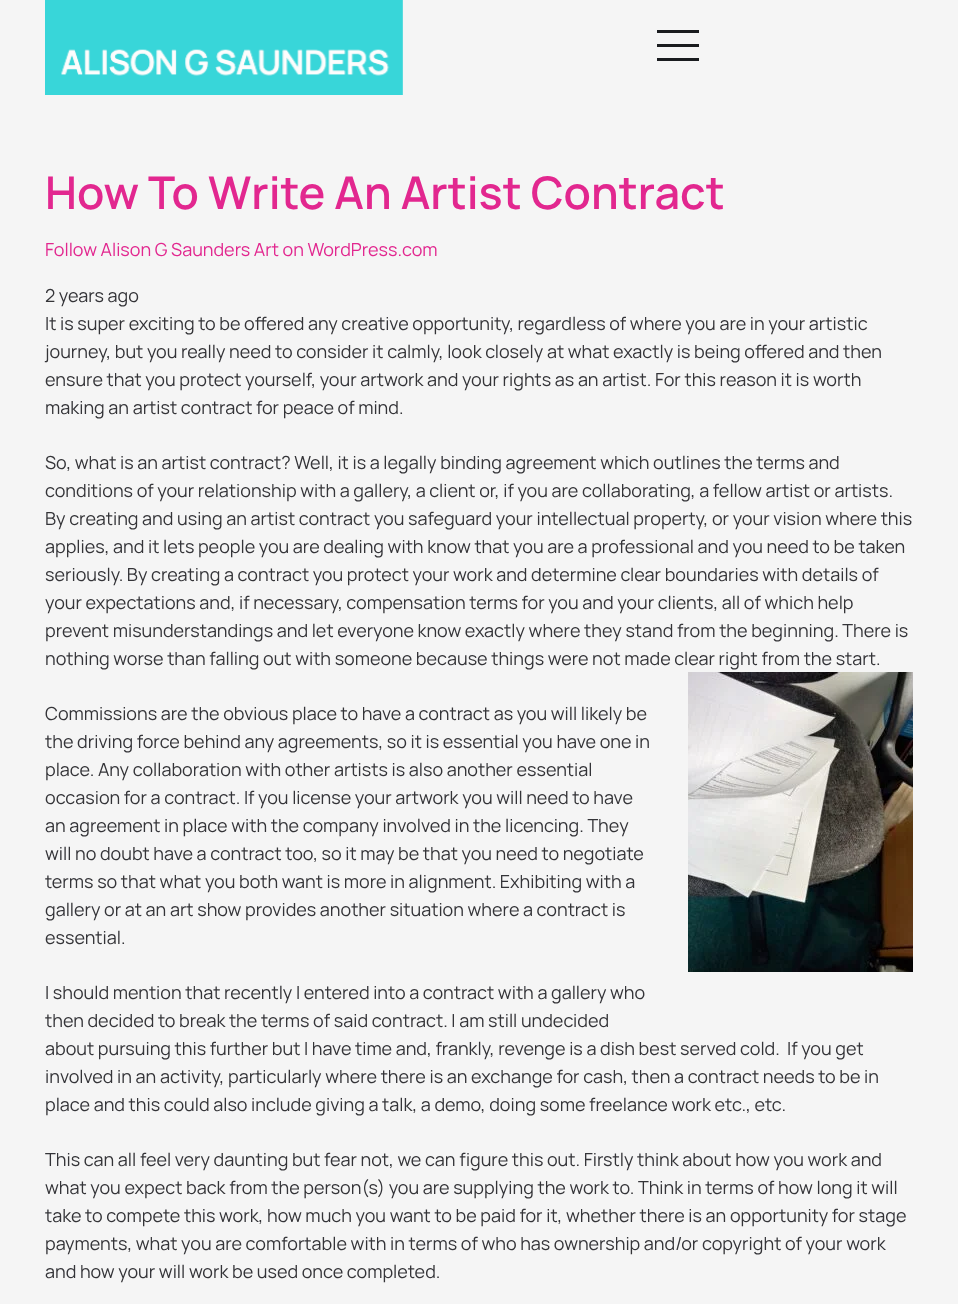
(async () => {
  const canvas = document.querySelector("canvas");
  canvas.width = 958;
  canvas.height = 1304;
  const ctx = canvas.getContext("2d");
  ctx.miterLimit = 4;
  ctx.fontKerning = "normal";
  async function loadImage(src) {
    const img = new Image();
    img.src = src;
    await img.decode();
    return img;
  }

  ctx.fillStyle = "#f5f5f5";
  ctx.fillRect(0, 0, 958, 1304);
  ctx.drawImage(await loadImage("img/1.png"), 45, 0, 358, 95);
  for (const [x, y, w, h, color] of [
    [657, 44, 42, 3, "#1a1c1f"],
    [657, 30, 42, 3, "#1a1c1f"],
    [657, 58, 42, 3, "#1a1c1f"],
  ]) {
    ctx.fillStyle = color;
    ctx.fillRect(x, y, w, h);
  }
  ctx.drawImage(await loadImage("img/2.png"), 688, 672, 225, 300);
  ctx.font = "600 45px Manrope";
  ctx.fillStyle = "#e2278f";
  ctx.fillText("How To Write An Artist Contract", 45, 209);
  ctx.font = "18px Manrope";
  ctx.fillText("Follow Alison G Saunders Art on WordPress.com", 45, 256);
  ctx.fillStyle = "#343438";
  for (const [text, x, y] of [
    ["2 years ago", 45, 302],
    ["It is super exciting to be offered any creative opportunity, regardless of where you are in your artistic", 45, 330],
    ["journey, but you really need to consider it calmly, look closely at what exactly is being offered and then", 45, 358],
    ["ensure that you protect yourself, your artwork and your rights as an artist. For this reason it is worth", 45, 386],
    ["making an artist contract for peace of mind.", 45, 414],
    ["So, what is an artist contract? Well, it is a legally binding agreement which outlines the terms and", 45, 469],
    ["conditions of your relationship with a gallery, a client or, if you are collaborating, a fellow artist or artists.", 45, 497],
    ["By creating and using an artist contract you safeguard your intellectual property, or your vision where this", 45, 525],
    ["applies, and it lets people you are dealing with know that you are a professional and you need to be taken", 45, 553],
    ["seriously. By creating a contract you protect your work and determine clear boundaries with details of", 45, 581],
    ["your expectations and, if necessary, compensation terms for you and your clients, all of which help", 45, 609],
    ["prevent misunderstandings and let everyone know exactly where they stand from the beginning. There is", 45, 637],
    ["nothing worse than falling out with someone because things were not made clear right from the start.", 45, 665],
    ["Commissions are the obvious place to have a contract as you will likely be", 45, 720],
    ["the driving force behind any agreements, so it is essential you have one in", 45, 748],
    ["place. Any collaboration with other artists is also another essential", 45, 776],
    ["occasion for a contract. If you license your artwork you will need to have", 45, 804],
    ["an agreement in place with the company involved in the licencing. They", 45, 832],
    ["will no doubt have a contract too, so it may be that you need to negotiate", 45, 860],
    ["terms so that what you both want is more in alignment. Exhibiting with a", 45, 888],
    ["gallery or at an art show provides another situation where a contract is", 45, 916],
    ["essential.", 45, 944],
    ["I should mention that recently I entered into a contract with a gallery who", 45, 999],
    ["then decided to break the terms of said contract. I am still undecided", 45, 1027],
    ["about pursuing this further but I have time and, frankly, revenge is a dish best served cold.  If you get", 45, 1055],
    ["involved in an activity, particularly where there is an exchange for cash, then a contract needs to be in", 45, 1083],
    ["place and this could also include giving a talk, a demo, doing some freelance work etc., etc.", 45, 1111],
    ["This can all feel very daunting but fear not, we can figure this out. Firstly think about how you work and", 45, 1166],
    ["what you expect back from the person(s) you are supplying the work to. Think in terms of how long it will", 45, 1194],
    ["take to compete this work, how much you want to be paid for it, whether there is an opportunity for stage", 45, 1222],
    ["payments, what you are comfortable with in terms of who has ownership and/or copyright of your work", 45, 1250],
    ["and how your will work be used once completed.", 45, 1278],
  ]) {
    ctx.fillText(text, x, y);
  }
})();
